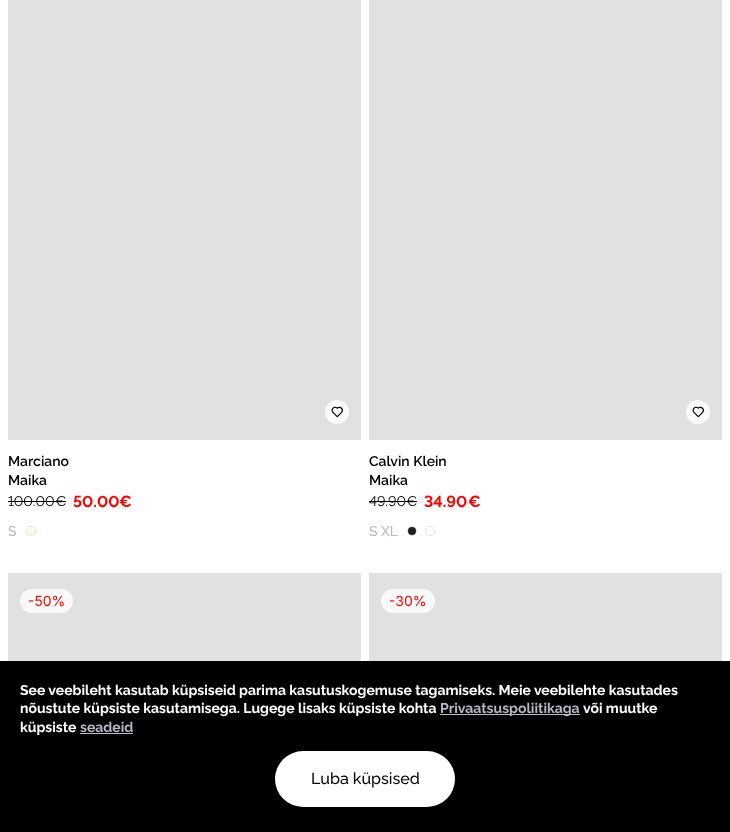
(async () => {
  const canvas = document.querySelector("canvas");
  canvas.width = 730;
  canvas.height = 832;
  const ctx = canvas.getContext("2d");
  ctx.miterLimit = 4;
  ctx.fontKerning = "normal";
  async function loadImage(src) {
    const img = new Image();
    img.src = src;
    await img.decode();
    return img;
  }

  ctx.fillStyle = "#ffffff";
  ctx.fillRect(0, 0, 730, 832);
  ctx.fillStyle = "#e1e1e1";
  ctx.fillRect(8, 0, 353, 440);
  ctx.fillStyle = "#f9f9f9";
  ctx.beginPath();
  ctx.arc(337, 412, 12, 0, Math.PI * 2);
  ctx.fill();
  ctx.drawImage(await loadImage("img/1.png"), 331, 406, 12, 12);
  ctx.fillStyle = "#000000";
  ctx.fillRect(8, 501, 47, 1);
  ctx.fillRect(55, 501, 11, 1);
  ctx.beginPath();
  ctx.arc(31, 531, 4.5, 0, Math.PI * 2);
  ctx.strokeStyle = "#e1e1e1";
  ctx.stroke();
  ctx.fillStyle = "#fff9e3";
  ctx.beginPath();
  ctx.arc(31, 531, 4, 0, Math.PI * 2);
  ctx.fill();
  ctx.fillStyle = "#e1e1e1";
  ctx.fillRect(369, 0, 353, 440);
  ctx.fillStyle = "#f9f9f9";
  ctx.beginPath();
  ctx.arc(698, 412, 12, 0, Math.PI * 2);
  ctx.fill();
  ctx.drawImage(await loadImage("img/1.png"), 692, 406, 12, 12);
  ctx.fillStyle = "#000000";
  ctx.fillRect(369, 501, 37, 1);
  ctx.fillRect(406, 501, 11, 1);
  ctx.beginPath();
  ctx.arc(412, 531, 4.5, 0, Math.PI * 2);
  ctx.stroke();
  ctx.fillStyle = "#1f1f1f";
  ctx.beginPath();
  ctx.arc(412, 531, 4, 0, Math.PI * 2);
  ctx.fill();
  ctx.beginPath();
  ctx.arc(430, 531, 4.5, 0, Math.PI * 2);
  ctx.stroke();
  ctx.fillStyle = "#fafffc";
  ctx.beginPath();
  ctx.arc(430, 531, 4, 0, Math.PI * 2);
  ctx.fill();
  ctx.fillStyle = "#e1e1e1";
  ctx.fillRect(8, 573, 353, 88);
  ctx.fillStyle = "#f9f9f9";
  ctx.beginPath();
  ctx.roundRect(20, 589, 53, 24, 12);
  ctx.fill();
  ctx.fillStyle = "#e1e1e1";
  ctx.fillRect(369, 573, 353, 88);
  ctx.fillStyle = "#f9f9f9";
  ctx.beginPath();
  ctx.roundRect(381, 589, 54, 24, 12);
  ctx.fill();
  for (const [x, y, w, h, color] of [
    [0, 661, 730, 171, "#000000"],
    [440, 714, 140, 1, "#b4b8c7"],
    [80, 733, 53, 1, "#b4b8c7"],
  ]) {
    ctx.fillStyle = color;
    ctx.fillRect(x, y, w, h);
  }
  ctx.fillStyle = "#ffffff";
  ctx.beginPath();
  ctx.roundRect(275, 751, 180, 56, 28);
  ctx.fill();
  ctx.font = "600 14px Raleway";
  ctx.fillStyle = "#000000";
  ctx.fillText("Marciano", 8, 466);
  ctx.fillText("Maika", 8, 485);
  ctx.font = "14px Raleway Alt";
  ctx.fillText("100.00", 8, 506);
  ctx.font = "14px Raleway";
  ctx.fillText("€", 55, 506);
  ctx.font = "bold 16px Raleway Alt";
  ctx.fillStyle = "#ff0000";
  ctx.fillText("50.00", 73, 507);
  ctx.font = "bold 16px Raleway";
  ctx.fillText("€", 119, 507);
  ctx.font = "500 14px Raleway";
  ctx.fillStyle = "#b4b8c7";
  ctx.fillText("S", 8, 536);
  ctx.font = "600 14px Raleway";
  ctx.fillStyle = "#000000";
  ctx.fillText("Calvin Klein", 369, 466);
  ctx.fillText("Maika", 369, 485);
  ctx.font = "14px Raleway Alt";
  ctx.fillText("49.90", 369, 506);
  ctx.font = "14px Raleway";
  ctx.fillText("€", 406, 506);
  ctx.font = "bold 16px Raleway Alt";
  ctx.fillStyle = "#ff0000";
  ctx.fillText("34.90", 424, 507);
  ctx.font = "bold 16px Raleway";
  ctx.fillText("€", 468, 507);
  ctx.font = "500 14px Raleway";
  ctx.fillStyle = "#b4b8c7";
  ctx.fillText("S XL", 369, 536);
  ctx.font = "14px Inter";
  ctx.fillStyle = "#ff0000";
  ctx.fillText("-50%", 28, 606);
  ctx.fillText("-30%", 389, 606);
  ctx.font = "bold 14px Raleway";
  ctx.fillStyle = "#ffffff";
  ctx.fillText("See veebileht kasutab küpsiseid parima kasutuskogemuse tagamiseks. Meie veebilehte kasutades", 20, 695);
  ctx.fillText("nõustute küpsiste kasutamisega. Lugege lisaks küpsiste kohta", 20, 713);
  ctx.fillStyle = "#b4b8c7";
  ctx.fillText("Privaatsuspoliitikaga", 440, 713);
  ctx.fillStyle = "#ffffff";
  ctx.fillText("või muutke", 583, 713);
  ctx.fillText("küpsiste", 20, 732);
  ctx.fillStyle = "#b4b8c7";
  ctx.fillText("seadeid", 80, 732);
  ctx.font = "500 16px Raleway";
  ctx.fillStyle = "#000000";
  ctx.fillText("Luba küpsised", 311, 784);
})();
